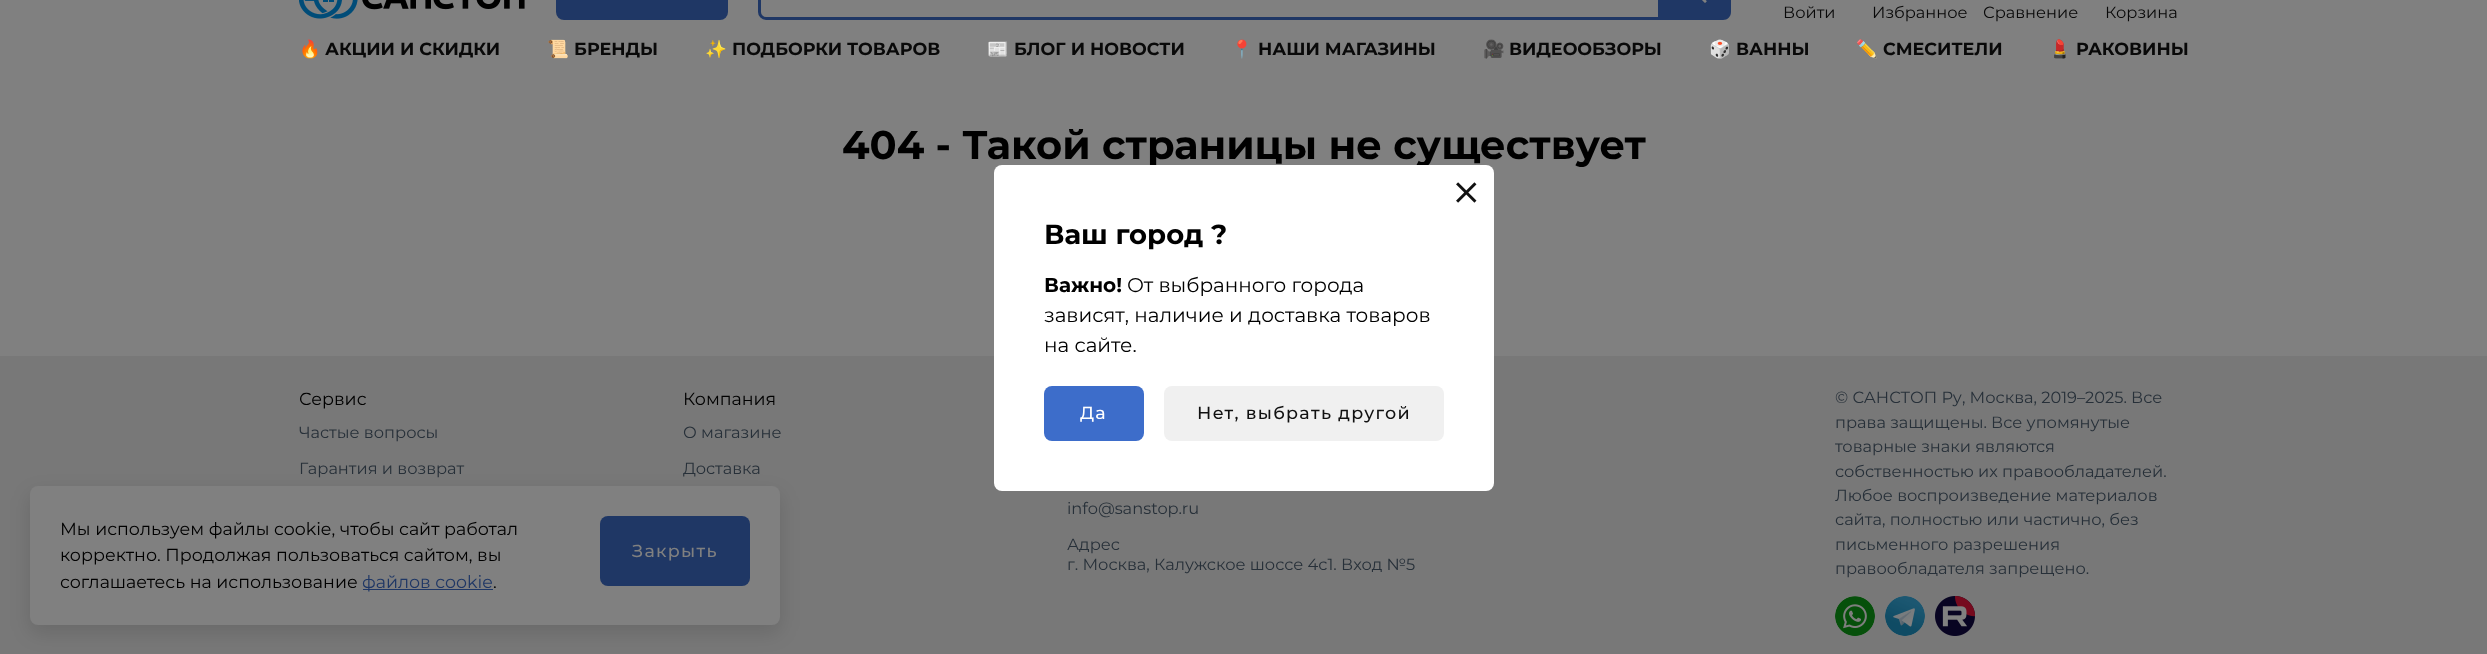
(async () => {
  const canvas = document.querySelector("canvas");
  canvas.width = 2487;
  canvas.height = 654;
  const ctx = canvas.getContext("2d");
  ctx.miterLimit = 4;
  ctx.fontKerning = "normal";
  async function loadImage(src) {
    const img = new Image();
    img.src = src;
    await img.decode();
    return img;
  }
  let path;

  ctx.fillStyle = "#808080";
  ctx.fillRect(0, 0, 2487, 654);
  ctx.drawImage(await loadImage("img/1.png"), 299, 0, 226, 19);
  ctx.fillStyle = "#1f3765";
  ctx.beginPath();
  ctx.roundRect(556, -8, 172, 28, 8);
  ctx.fill();
  path = new Path2D("M766-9.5H1659.5V18.5H766C762.5 18.5 759.5 15.5 759.5 12V-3C759.5-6.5 762.5-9.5 766-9.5Z");
  ctx.strokeStyle = "#1f3765";
  ctx.lineWidth = 3;
  ctx.stroke(path);
  path = new Path2D("M1661-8H1723C1727.5-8 1731-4.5 1731 0V12C1731 16.5 1727.5 20 1723 20H1661Z");
  ctx.fill(path);
  ctx.drawImage(await loadImage("img/2.png"), 1702, 0, 5, 3);
  ctx.fillStyle = "#787878";
  ctx.fillRect(0, 356, 2487, 298);
  ctx.fillStyle = "rgba(0, 0, 0, 0.12)";
  ctx.filter = "blur(10px)";
  ctx.beginPath();
  ctx.roundRect(30, 494, 750, 139, 8);
  ctx.fill();
  ctx.filter = "none";
  ctx.fillStyle = "#808080";
  ctx.beginPath();
  ctx.roundRect(30, 486, 750, 139, 8);
  ctx.fill();
  ctx.fillStyle = "#1f3765";
  ctx.fillRect(363, 589, 130, 1);
  ctx.beginPath();
  ctx.roundRect(600, 516, 150, 70, 8);
  ctx.fill();
  ctx.fillStyle = "#808080";
  ctx.beginPath();
  ctx.arc(1855, 616, 20, 0, Math.PI * 2);
  ctx.fill();
  ctx.drawImage(await loadImage("img/4.png"), 1835, 596, 40, 40);
  ctx.beginPath();
  ctx.arc(1905, 616, 20, 0, Math.PI * 2);
  ctx.fill();
  ctx.drawImage(await loadImage("img/5.png"), 1885, 596, 40, 40);
  ctx.drawImage(await loadImage("img/6.png"), 1935, 596, 40, 40);
  ctx.font = "16.25px Montserrat";
  ctx.fillStyle = "#090909";
  for (const [text, x, y] of [
    ["Войти", 1783, 18],
    ["Избранное", 1872, 18],
    ["Сравнение", 1983, 18],
    ["Корзина", 2105, 18],
  ]) {
    ctx.fillText(text, x, y);
  }
  ctx.font = "bold 17.5px Noto Color Emoji";
  ctx.fillText("🔥", 299, 55);
  ctx.font = "bold 17.5px Montserrat";
  ctx.fillText("АКЦИИ И СКИДКИ", 325, 55);
  ctx.font = "bold 17.5px Noto Color Emoji";
  ctx.fillText("📜", 547, 55);
  ctx.font = "bold 17.5px Montserrat";
  ctx.fillText("БРЕНДЫ", 574, 55);
  ctx.font = "bold 17.5px Noto Color Emoji";
  ctx.fillText("✨", 705, 55);
  ctx.font = "bold 17.5px Montserrat";
  ctx.fillText("ПОДБОРКИ ТОВАРОВ", 732, 55);
  ctx.font = "bold 17.5px Noto Color Emoji";
  ctx.fillText("📰", 987, 55);
  ctx.font = "bold 17.5px Montserrat";
  ctx.fillText("БЛОГ И НОВОСТИ", 1014, 55);
  ctx.font = "bold 17.5px Noto Color Emoji";
  ctx.fillText("📍", 1231, 55);
  ctx.font = "bold 17.5px Montserrat";
  ctx.fillText("НАШИ МАГАЗИНЫ", 1258, 55);
  ctx.font = "bold 17.5px Noto Color Emoji";
  ctx.fillText("🎥", 1483, 55);
  ctx.font = "bold 17.5px Montserrat";
  ctx.fillText("ВИДЕООБЗОРЫ", 1509, 55);
  ctx.font = "bold 17.5px Noto Color Emoji";
  ctx.fillText("🎲", 1709, 55);
  ctx.font = "bold 17.5px Montserrat";
  ctx.fillText("ВАННЫ", 1736, 55);
  ctx.font = "bold 17.5px Noto Color Emoji";
  ctx.fillText("✏️", 1856, 55);
  ctx.font = "bold 17.5px Montserrat";
  ctx.fillText("СМЕСИТЕЛИ", 1883, 55);
  ctx.font = "bold 17.5px Noto Color Emoji";
  ctx.fillText("💄", 2049, 55);
  ctx.font = "bold 17.5px Montserrat";
  ctx.fillText("РАКОВИНЫ", 2076, 55);
  ctx.font = "bold 40px Montserrat";
  ctx.fillStyle = "#000000";
  ctx.fillText("404 - Такой страницы не существует", 842, 159);
  ctx.fillStyle = "#ffffff";
  ctx.beginPath();
  ctx.roundRect(994, 165, 500, 326, 8);
  ctx.fill();
  ctx.drawImage(await loadImage("img/3.png"), 1456, 182, 21, 21);
  ctx.font = "bold 27.5px Montserrat";
  ctx.fillStyle = "#000000";
  ctx.fillText("Ваш город ?", 1044, 244);
  ctx.font = "bold 20px Montserrat";
  ctx.fillText("Важно!", 1044, 292);
  ctx.font = "20px Montserrat";
  for (const [text, x, y] of [
    ["От выбранного города", 1127, 292],
    ["зависят, наличие и доставка товаров", 1044, 322],
    ["на сайте.", 1044, 352],
  ]) {
    ctx.fillText(text, x, y);
  }
  ctx.fillStyle = "#3d6dca";
  ctx.beginPath();
  ctx.roundRect(1044, 386, 100, 55, 8);
  ctx.fill();
  ctx.letterSpacing = "1.3px";
  ctx.font = "500 17.5px Montserrat";
  ctx.fillStyle = "#ffffff";
  ctx.fillText("Да", 1080, 419);
  ctx.fillStyle = "#f0f0f0";
  ctx.beginPath();
  ctx.roundRect(1164, 386, 280, 55, 8);
  ctx.fill();
  ctx.fillStyle = "#111111";
  ctx.fillText("Нет, выбрать другой", 1197, 419);
  ctx.letterSpacing = "0px";
  ctx.font = "17.5px Montserrat";
  ctx.fillStyle = "#000000";
  for (const [text, x, y] of [
    ["Мы используем файлы cookie, чтобы сайт работал", 60, 535],
    ["корректно. Продолжая пользоваться сайтом, вы", 60, 561],
    ["соглашаетесь на использование", 60, 588],
  ]) {
    ctx.fillText(text, x, y);
  }
  ctx.fillStyle = "#1f3765";
  ctx.fillText("файлов cookie", 362, 588);
  ctx.fillStyle = "#000000";
  ctx.fillText(".", 493, 588);
  ctx.letterSpacing = "1.3px";
  ctx.font = "500 17.5px Montserrat";
  ctx.fillStyle = "#808080";
  ctx.fillText("Закрыть", 632, 557);
  ctx.letterSpacing = "0px";
  ctx.font = "17.5px Montserrat";
  ctx.fillStyle = "#000000";
  ctx.fillText("Сервис", 299, 405);
  ctx.font = "16.25px Montserrat";
  ctx.fillStyle = "#273039";
  ctx.fillText("Частые вопросы", 299, 438);
  ctx.fillText("Гарантия и возврат", 299, 474);
  ctx.font = "17.5px Montserrat";
  ctx.fillStyle = "#000000";
  ctx.fillText("Компания", 683, 405);
  ctx.font = "16.25px Montserrat";
  ctx.fillStyle = "#273039";
  for (const [text, x, y] of [
    ["О магазине", 683, 438],
    ["Доставка", 683, 474],
    ["© САНСТОП Ру, Москва, 2019–2025. Все", 1835, 403],
    ["права защищены. Все упомянутые", 1835, 428],
    ["товарные знаки являются", 1835, 452],
    ["собственностью их правообладателей.", 1835, 477],
    ["Любое воспроизведение материалов", 1835, 501],
    ["сайта, полностью или частично, без", 1835, 525],
    ["письменного разрешения", 1835, 550],
    ["правообладателя запрещено.", 1835, 574],
    ["info@sanstop.ru", 1067, 514],
    ["Адрес", 1067, 550],
    ["г. Москва, Калужское шоссе 4с1. Вход №5", 1067, 570],
  ]) {
    ctx.fillText(text, x, y);
  }
})();
